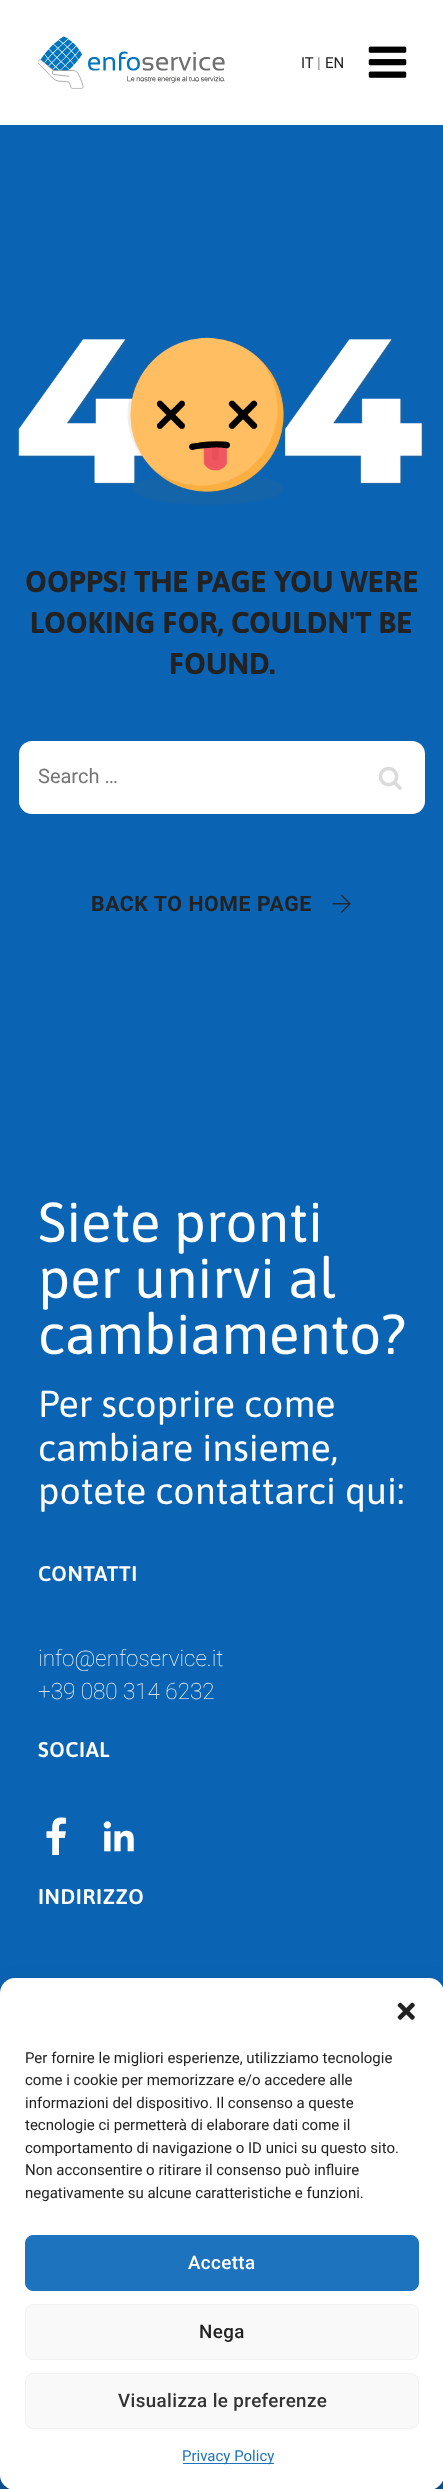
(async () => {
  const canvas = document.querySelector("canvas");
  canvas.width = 443;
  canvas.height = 2489;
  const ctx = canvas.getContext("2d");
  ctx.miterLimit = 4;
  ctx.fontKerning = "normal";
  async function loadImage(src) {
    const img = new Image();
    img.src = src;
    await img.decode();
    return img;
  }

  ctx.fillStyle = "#ffffff";
  ctx.fillRect(0, 0, 443, 2489);
  ctx.drawImage(await loadImage("img/1.png"), 38, 36, 187, 53);
  ctx.drawImage(await loadImage("img/2.png"), 368, 46, 39, 32);
  ctx.fillStyle = "#0b64b3";
  ctx.fillRect(0, 125, 443, 2364);
  ctx.drawImage(await loadImage("img/3.png"), 18, 337, 407, 168);
  ctx.fillStyle = "#ffffff";
  ctx.beginPath();
  ctx.roundRect(19, 741, 406, 73, 13);
  ctx.fill();
  ctx.drawImage(await loadImage("img/4.png"), 378, 766, 24, 24);
  ctx.drawImage(await loadImage("img/5.png"), 332, 894, 19, 19);
  ctx.drawImage(await loadImage("img/6.png"), 46, 1817, 21, 38);
  ctx.drawImage(await loadImage("img/7.png"), 103, 1821, 31, 31);
  ctx.fillStyle = "rgba(0, 0, 0, 0.23)";
  ctx.filter = "blur(4px)";
  ctx.beginPath();
  ctx.roundRect(0, 1985, 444, 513, 15);
  ctx.fill();
  ctx.filter = "none";
  ctx.fillStyle = "rgba(0, 0, 0, 0.19)";
  ctx.filter = "blur(12.5px)";
  ctx.beginPath();
  ctx.roundRect(0, 1990, 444, 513, 15);
  ctx.fill();
  ctx.filter = "none";
  ctx.fillStyle = "#ffffff";
  ctx.beginPath();
  ctx.roundRect(0, 1978, 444, 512, 15);
  ctx.fill();
  ctx.drawImage(await loadImage("img/8.png"), 397, 2002, 18, 18);
  ctx.fillStyle = "#1e73be";
  ctx.beginPath();
  ctx.roundRect(25.5, 2235.5, 393, 55, 7.5);
  ctx.fill();
  ctx.strokeStyle = "#1e73be";
  ctx.stroke();
  ctx.fillStyle = "#f9f9f9";
  ctx.beginPath();
  ctx.roundRect(25.5, 2304.5, 393, 55, 7.5);
  ctx.fill();
  ctx.strokeStyle = "#f2f2f2";
  ctx.stroke();
  ctx.beginPath();
  ctx.roundRect(25.5, 2373.5, 393, 55, 7.5);
  ctx.fill();
  ctx.stroke();
  ctx.fillStyle = "#1e73be";
  ctx.fillRect(183, 2463, 91, 1);
  ctx.font = "15px Roboto";
  ctx.fillStyle = "#222222";
  ctx.fillText("IT", 301, 68);
  ctx.fillStyle = "#888888";
  ctx.fillText("|", 317, 68);
  ctx.fillStyle = "#222222";
  ctx.fillText("EN", 325, 68);
  ctx.font = "bold 30px Asap";
  for (const [text, x, y] of [
    ["OOPPS! THE PAGE YOU WERE", 25, 592],
    ["LOOKING FOR, COULDN'T BE", 30, 633],
    ["FOUND.", 169, 674],
  ]) {
    ctx.fillText(text, x, y);
  }
  ctx.font = "20px Roboto";
  ctx.fillStyle = "#757575";
  ctx.fillText("Search …", 38, 783);
  ctx.letterSpacing = "0.6px";
  ctx.font = "bold 21.25px Roboto";
  ctx.fillStyle = "#222222";
  ctx.fillText("BACK TO HOME PAGE", 91, 911);
  ctx.letterSpacing = "0px";
  ctx.font = "56.25px Asap";
  ctx.fillStyle = "#ffffff";
  for (const [text, x, y] of [
    ["Siete pronti", 38, 1242],
    ["per unirvi al", 38, 1298],
    ["cambiamento?", 38, 1354],
  ]) {
    ctx.fillText(text, x, y);
  }
  ctx.font = "37.5px Asap";
  for (const [text, x, y] of [
    ["Per scoprire come", 38, 1417],
    ["cambiare insieme,", 38, 1461],
    ["potete contattarci qui:", 38, 1504],
  ]) {
    ctx.fillText(text, x, y);
  }
  ctx.letterSpacing = "0.6px";
  ctx.font = "600 21.25px Asap";
  ctx.fillText("CONTATTI", 38, 1581);
  ctx.letterSpacing = "0px";
  ctx.font = "100 22.5px Roboto";
  ctx.fillText("info@enfoservice.it", 38, 1666);
  ctx.fillText("+39 080 314 6232", 38, 1699);
  ctx.letterSpacing = "0.6px";
  ctx.font = "600 21.25px Asap";
  ctx.fillText("SOCIAL", 38, 1757);
  ctx.fillText("INDIRIZZO", 38, 1904);
  ctx.letterSpacing = "0px";
  ctx.font = "15px Roboto";
  ctx.fillStyle = "#222222";
  for (const [text, x, y] of [
    ["Per fornire le migliori esperienze, utilizziamo tecnologie", 25, 2063],
    ["come i cookie per memorizzare e/o accedere alle", 25, 2085],
    ["informazioni del dispositivo. Il consenso a queste", 25, 2108],
    ["tecnologie ci permetterà di elaborare dati come il", 25, 2130],
    ["comportamento di navigazione o ID unici su questo sito.", 25, 2153],
    ["Non acconsentire o ritirare il consenso può influire", 25, 2175],
    ["negativamente su alcune caratteristiche e funzioni.", 25, 2198],
  ]) {
    ctx.fillText(text, x, y);
  }
  ctx.letterSpacing = "0.4px";
  ctx.font = "500 18.75px Roboto";
  ctx.fillStyle = "#ffffff";
  ctx.fillText("Accetta", 188, 2269);
  ctx.fillStyle = "#222222";
  ctx.fillText("Nega", 199, 2338);
  ctx.fillStyle = "#333333";
  ctx.fillText("Visualizza le preferenze", 118, 2407);
  ctx.letterSpacing = "0px";
  ctx.font = "15px Roboto";
  ctx.fillStyle = "#1e73be";
  ctx.fillText("Privacy Policy", 182, 2461);
})();
